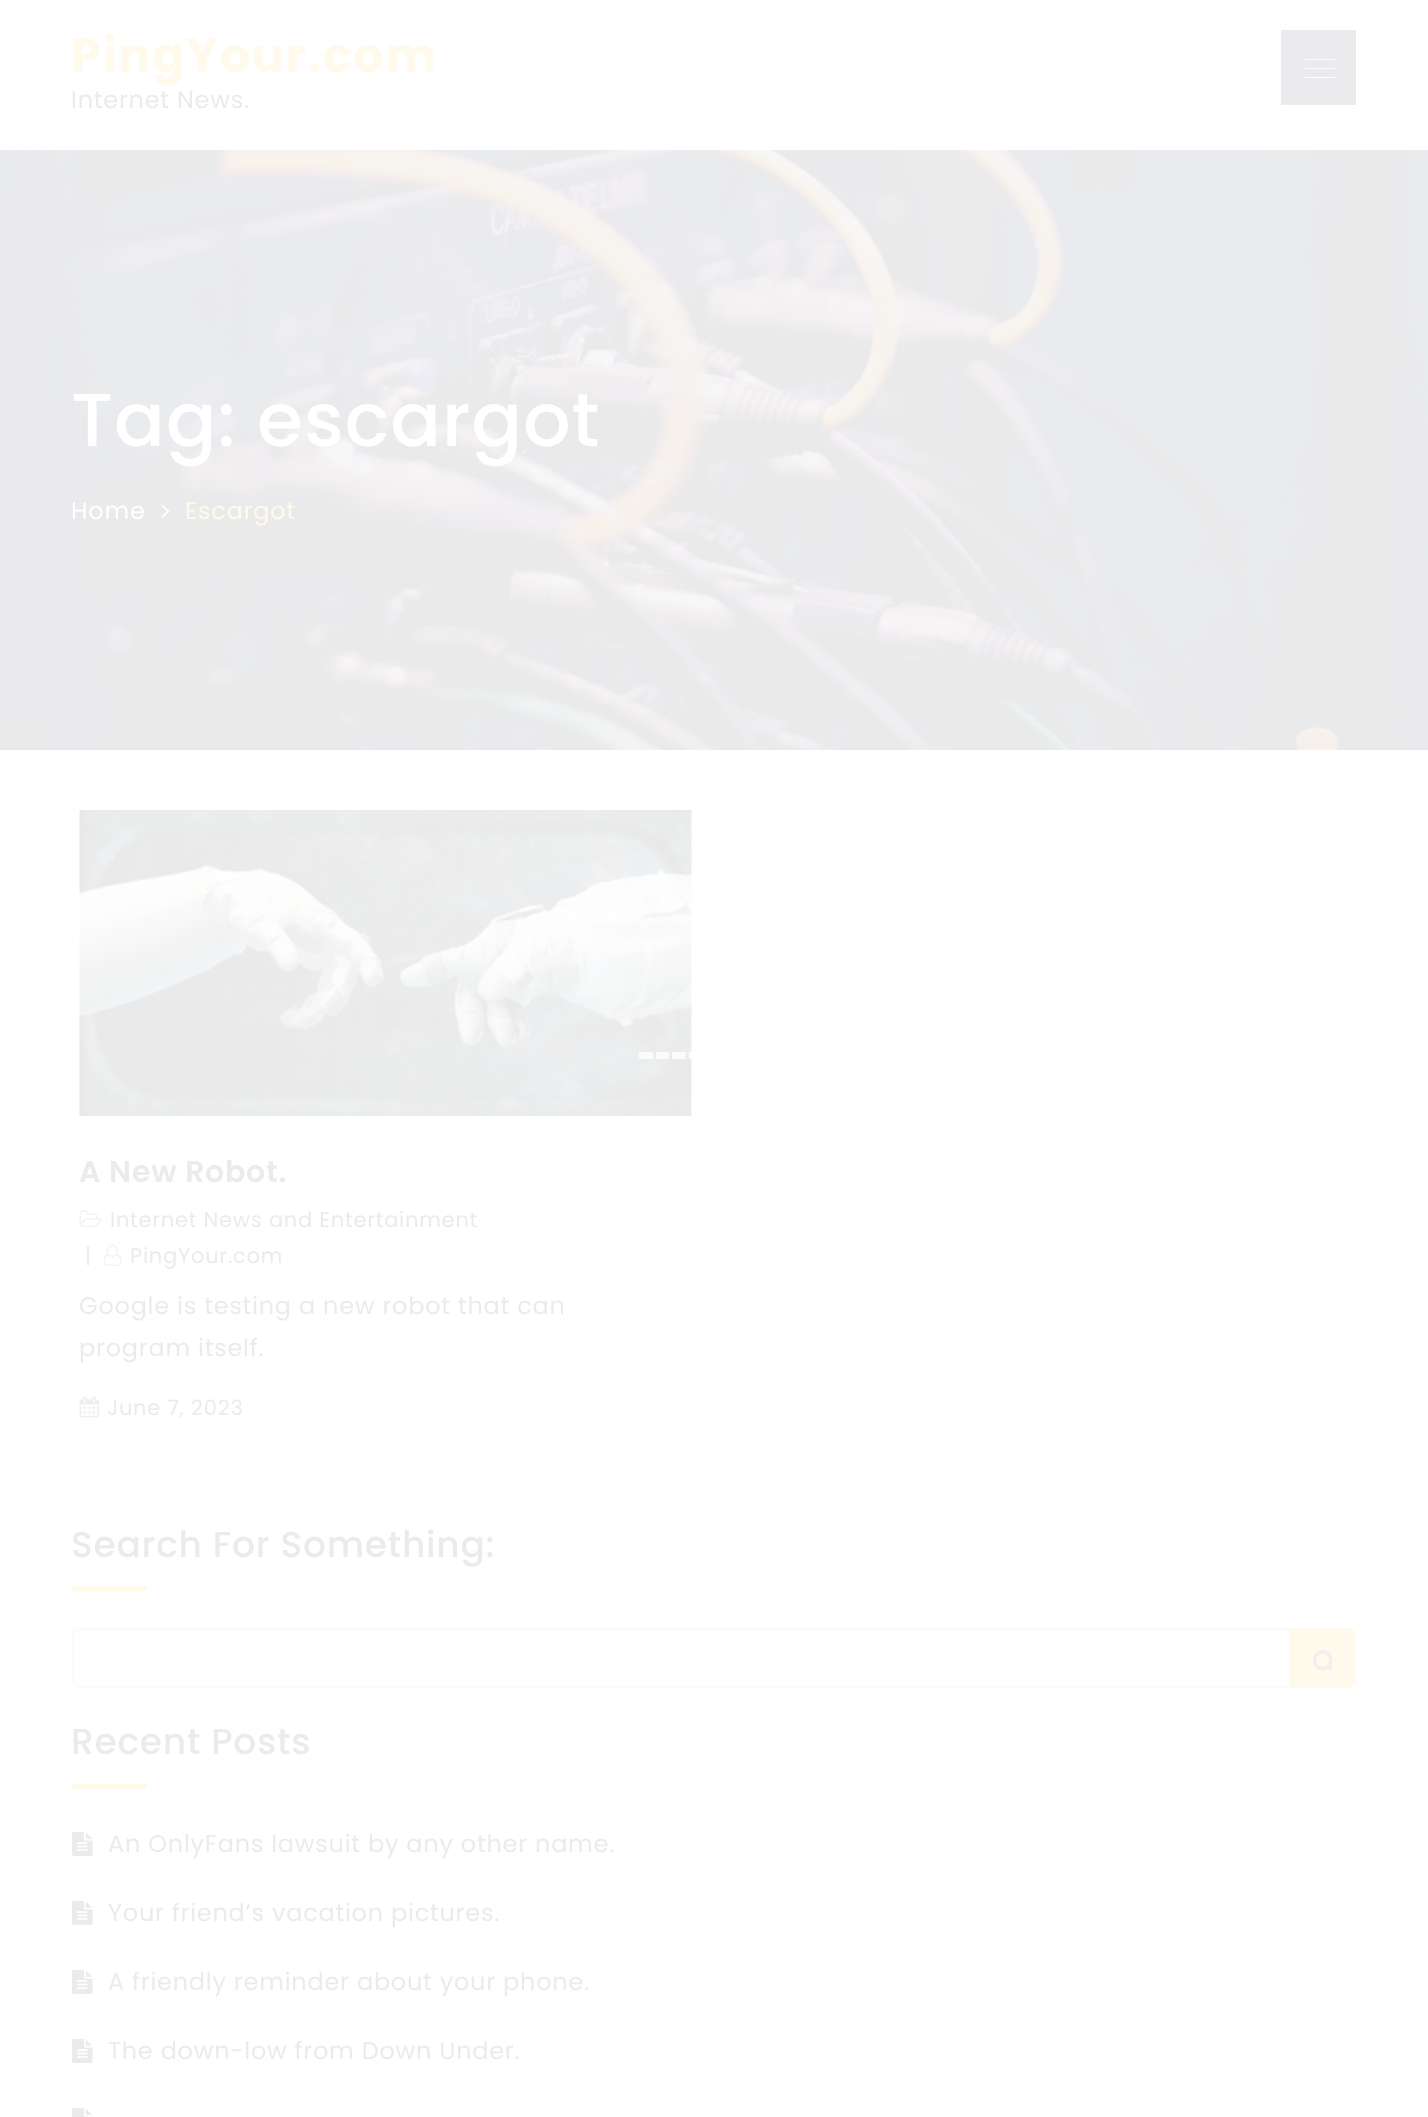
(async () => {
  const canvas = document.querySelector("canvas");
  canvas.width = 1428;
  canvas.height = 2117;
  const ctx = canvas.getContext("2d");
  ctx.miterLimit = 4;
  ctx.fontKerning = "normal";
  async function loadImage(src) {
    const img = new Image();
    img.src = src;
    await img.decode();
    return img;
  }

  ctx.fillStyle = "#ffffff";
  ctx.fillRect(0, 0, 1428, 2117);
  for (const [x, y, w, h, color] of [
    [1281, 30, 75, 75, "#ebebed"],
    [1305, 59, 30, 1, "#ffffff"],
    [1305, 68, 30, 1, "#ffffff"],
    [1305, 77, 30, 1, "#ffffff"],
  ]) {
    ctx.fillStyle = color;
    ctx.fillRect(x, y, w, h);
  }
  ctx.drawImage(await loadImage("img/1.png"), 0, 150, 1428, 600);
  ctx.drawImage(await loadImage("img/2.png"), 161, 504, 9, 14);
  ctx.drawImage(await loadImage("img/3.png"), 79, 810, 613, 306);
  ctx.drawImage(await loadImage("img/4.png"), 79, 1210, 23, 17);
  ctx.drawImage(await loadImage("img/5.png"), 103, 1245, 19, 21);
  ctx.drawImage(await loadImage("img/6.png"), 79, 1396, 20, 22);
  ctx.fillStyle = "#fffaec";
  ctx.fillRect(72, 1586, 75, 5);
  ctx.beginPath();
  ctx.roundRect(73, 1629, 1282, 58, 7);
  ctx.strokeStyle = "#fafafa";
  ctx.lineWidth = 2;
  ctx.stroke();
  ctx.beginPath();
  ctx.roundRect(1289, 1628, 67, 60, [0, 8, 8, 0]);
  ctx.fill();
  ctx.drawImage(await loadImage("img/7.png"), 1313, 1650, 19, 20);
  ctx.fillRect(72, 1784, 75, 5);
  ctx.drawImage(await loadImage("img/8.png"), 72, 1831, 21, 25);
  ctx.drawImage(await loadImage("img/8.png"), 72, 1900, 21, 25);
  ctx.drawImage(await loadImage("img/8.png"), 72, 1969, 21, 25);
  ctx.drawImage(await loadImage("img/8.png"), 72, 2038, 21, 25);
  ctx.drawImage(await loadImage("img/9.png"), 72, 2107, 21, 10);
  for (const [x, y, w, h, color] of [
    [639, 1052, 14, 7, "rgba(255, 255, 255, 0.78)"],
    [656, 1052, 13, 7, "rgba(255, 255, 255, 0.78)"],
    [672, 1052, 14, 7, "rgba(255, 255, 255, 0.78)"],
    [689, 1052, 3, 7, "rgba(255, 255, 255, 0.78)"],
  ]) {
    ctx.fillStyle = color;
    ctx.fillRect(x, y, w, h);
  }
  ctx.letterSpacing = "1.5px";
  ctx.font = "bold 48px Poppins";
  ctx.fillStyle = "#fffaec";
  ctx.fillText("PingYour.com", 71, 72);
  ctx.letterSpacing = "0.75px";
  ctx.font = "24px Poppins";
  ctx.fillStyle = "#ebebed";
  ctx.fillText("Internet News.", 71, 108);
  ctx.font = "500 75px Poppins";
  ctx.fillStyle = "#ffffff";
  ctx.fillText("Tag: escargot", 71, 446);
  ctx.font = "24px Poppins";
  ctx.fillText("Home", 71, 519);
  ctx.fillStyle = "#fffaec";
  ctx.fillText("Escargot", 185, 519);
  ctx.font = "600 30px Poppins";
  ctx.fillStyle = "#ebebed";
  ctx.fillText("A New Robot.", 79, 1182);
  ctx.font = "21px Poppins";
  for (const [text, x, y] of [
    ["Internet News and Entertainment", 110, 1227],
    ["|", 85, 1263],
    ["PingYour.com", 130, 1263],
  ]) {
    ctx.fillText(text, x, y);
  }
  ctx.font = "24px Poppins";
  ctx.fillText("Google is testing a new robot that can", 79, 1314);
  ctx.fillText("program itself.", 79, 1356);
  ctx.font = "21px Poppins";
  ctx.fillText("June 7, 2023", 107, 1415);
  ctx.font = "500 36px Poppins";
  ctx.fillText("Search For Something:", 71, 1557);
  ctx.fillText("Recent Posts", 71, 1754);
  ctx.font = "24px Poppins";
  for (const [text, x, y] of [
    ["An OnlyFans lawsuit by any other name.", 108, 1852],
    ["Your friend’s vacation pictures.", 108, 1921],
    ["A friendly reminder about your phone.", 108, 1990],
    ["The down-low from Down Under.", 108, 2059],
  ]) {
    ctx.fillText(text, x, y);
  }
})();
